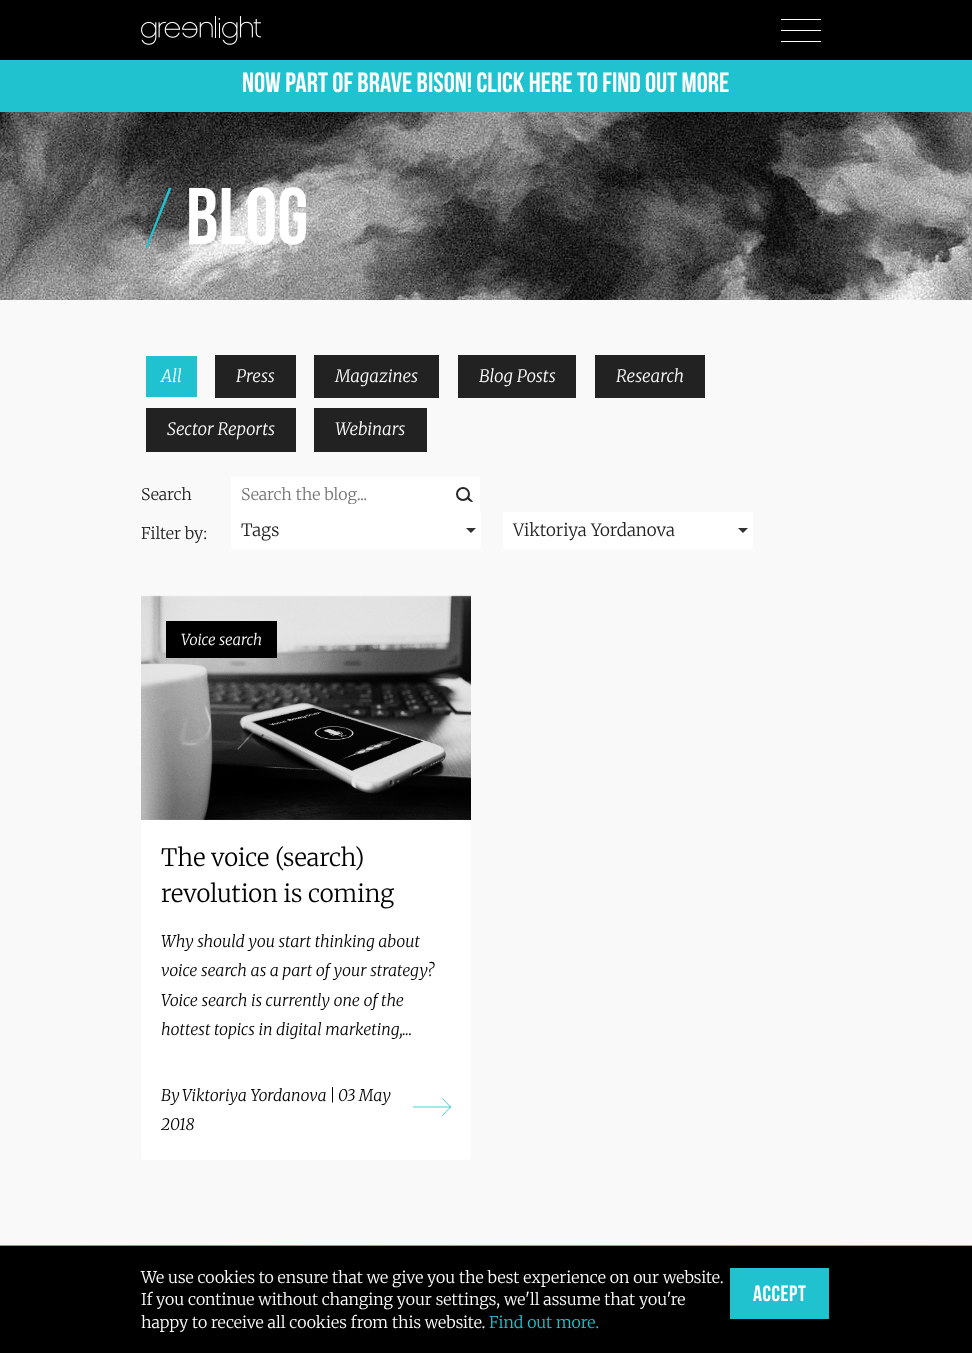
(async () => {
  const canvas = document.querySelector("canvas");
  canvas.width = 972;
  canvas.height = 1353;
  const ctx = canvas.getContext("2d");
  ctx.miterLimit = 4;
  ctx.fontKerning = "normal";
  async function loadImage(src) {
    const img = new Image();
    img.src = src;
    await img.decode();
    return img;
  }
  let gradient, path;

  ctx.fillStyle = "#ffffff";
  ctx.fillRect(0, 0, 972, 1353);
  ctx.fillStyle = "#000000";
  ctx.fillRect(0, 0, 972, 60);
  ctx.drawImage(await loadImage("img/1.png"), 141, 16, 120, 29);
  for (const [x, y, w, h, color] of [
    [781, 19, 40, 1, "#ffffff"],
    [781, 30, 40, 1, "#ffffff"],
    [781, 41, 40, 1, "#ffffff"],
    [0, 60, 972, 52, "#1fc2ce"],
  ]) {
    ctx.fillStyle = color;
    ctx.fillRect(x, y, w, h);
  }
  ctx.drawImage(await loadImage("img/2.png"), 0, 112, 972, 188);
  ctx.save();
  ctx.beginPath();
  ctx.rect(141, 188, 35, 60);
  ctx.clip();
  path = new Path2D("M173 177H176L143 259H141Z");
  ctx.fill(path, "evenodd");
  ctx.restore();
  for (const [x, y, w, h, color] of [
    [0, 300, 972, 945, "#f9f9f9"],
    [146, 356, 51, 41, "#1fc2ce"],
    [215, 355, 81, 43, "#222222"],
    [314, 355, 125, 43, "#222222"],
    [458, 355, 118, 43, "#222222"],
    [595, 355, 110, 43, "#222222"],
    [146, 408, 150, 44, "#222222"],
    [314, 408, 113, 44, "#222222"],
    [231, 477, 249, 35, "#ffffff"],
  ]) {
    ctx.fillStyle = color;
    ctx.fillRect(x, y, w, h);
  }
  ctx.beginPath();
  ctx.arc(463, 494, 6, 0, Math.PI * 2);
  ctx.strokeStyle = "#272727";
  ctx.lineWidth = 2;
  ctx.stroke();
  ctx.fillStyle = "#272727";
  path = new Path2D("M468 496.5L473 501.5C471 503.5 468 499.5 466.5 498Z");
  ctx.fill(path);
  ctx.fillStyle = "#ffffff";
  ctx.fillRect(231, 512, 250, 37);
  ctx.fillStyle = "#333333";
  path = new Path2D("M466 528H476L471 533Z");
  ctx.fill(path);
  ctx.fillStyle = "#ffffff";
  ctx.fillRect(503, 512, 250, 37);
  ctx.fillStyle = "#333333";
  path = new Path2D("M738 528H748L743 533Z");
  ctx.fill(path);
  ctx.fillStyle = "#ffffff";
  ctx.beginPath();
  ctx.roundRect(141, 596, 330, 564, 4);
  ctx.fill();
  ctx.drawImage(await loadImage("img/3.png"), 141, 595, 330, 225);
  ctx.fillStyle = "#000000";
  ctx.fillRect(166, 621, 111, 37);
  path = new Path2D("M442.5 1115.5L450.5 1107M442.5 1098.5L450.5 1107M413.5 1107H450.5");
  ctx.strokeStyle = "#1fc2ce";
  ctx.lineWidth = 0.8;
  ctx.lineCap = "square";
  ctx.stroke(path);
  gradient = ctx.createLinearGradient(0, 1250, 972, 1250);
  gradient.addColorStop(0, "#1fc2ce");
  gradient.addColorStop(1, "#05e4bc");
  ctx.fillStyle = gradient;
  ctx.fillRect(0, 1245, 972, 1);
  ctx.fillStyle = "#000000";
  ctx.fillRect(0, 1246, 972, 107);
  ctx.fillStyle = "#1fc2ce";
  ctx.fillRect(730, 1268, 99, 51);
  ctx.font = "bold 28px Bebas Neue";
  ctx.fillStyle = "#ffffff";
  ctx.fillText("Now part of brave bison! Click here to find out more", 242, 92);
  ctx.font = "bold 80px Bebas Neue";
  ctx.fillText("Blog", 186, 244);
  ctx.font = "italic 300 17px Merriweather";
  for (const [text, x, y] of [
    ["All", 161, 382],
    ["Press", 236, 382],
    ["Magazines", 335, 382],
    ["Blog Posts", 479, 382],
    ["Research", 616, 382],
    ["Sector Reports", 167, 435],
    ["Webinars", 335, 435],
  ]) {
    ctx.fillText(text, x, y);
  }
  ctx.font = "300 16px Merriweather";
  ctx.fillStyle = "#222222";
  ctx.fillText("Search", 141, 500);
  ctx.save();
  ctx.beginPath();
  ctx.rect(241, 484, 195, 20);
  ctx.clip();
  ctx.fillStyle = "#757575";
  ctx.fillText("Search the blog...", 241, 500);
  ctx.restore();
  ctx.fillText("Filter by:", 141, 539);
  ctx.font = "300 17px Merriweather";
  ctx.fillText("Tags", 241, 536);
  ctx.fillText("Viktoriya Yordanova", 513, 536);
  ctx.font = "italic 300 15px Merriweather";
  ctx.fillStyle = "#ffffff";
  ctx.fillText("Voice search", 181, 645);
  ctx.font = "300 24px Merriweather";
  ctx.fillStyle = "#000000";
  ctx.fillText("The voice (search)", 161, 866);
  ctx.fillText("revolution is coming", 161, 902);
  ctx.font = "italic 300 16px Merriweather";
  for (const [text, x, y] of [
    ["Why should you start thinking about", 161, 947],
    ["voice search as a part of your strategy?", 161, 976],
    ["Voice search is currently one of the", 161, 1006],
    ["hottest topics in digital marketing,...", 161, 1035],
    ["By", 161, 1101],
    ["Viktoriya Yordanova", 182, 1101],
    ["|", 329, 1101],
    ["03 May", 338, 1101],
    ["2018", 161, 1130],
  ]) {
    ctx.fillText(text, x, y);
  }
  ctx.font = "300 16px Merriweather";
  ctx.fillStyle = "#ffffff";
  for (const [text, x, y] of [
    ["We use cookies to ensure that we give you the best experience on our website.", 141, 1283],
    ["If you continue without changing your settings, we'll assume that you're", 141, 1305],
    ["happy to receive all cookies from this website.", 141, 1328],
  ]) {
    ctx.fillText(text, x, y);
  }
  ctx.fillStyle = "#1fc2ce";
  ctx.fillText("Find out more.", 489, 1328);
  ctx.letterSpacing = "0.5px";
  ctx.font = "bold 22px Bebas Neue";
  ctx.fillStyle = "#ffffff";
  ctx.fillText("ACCEPT", 753, 1301);
})();
